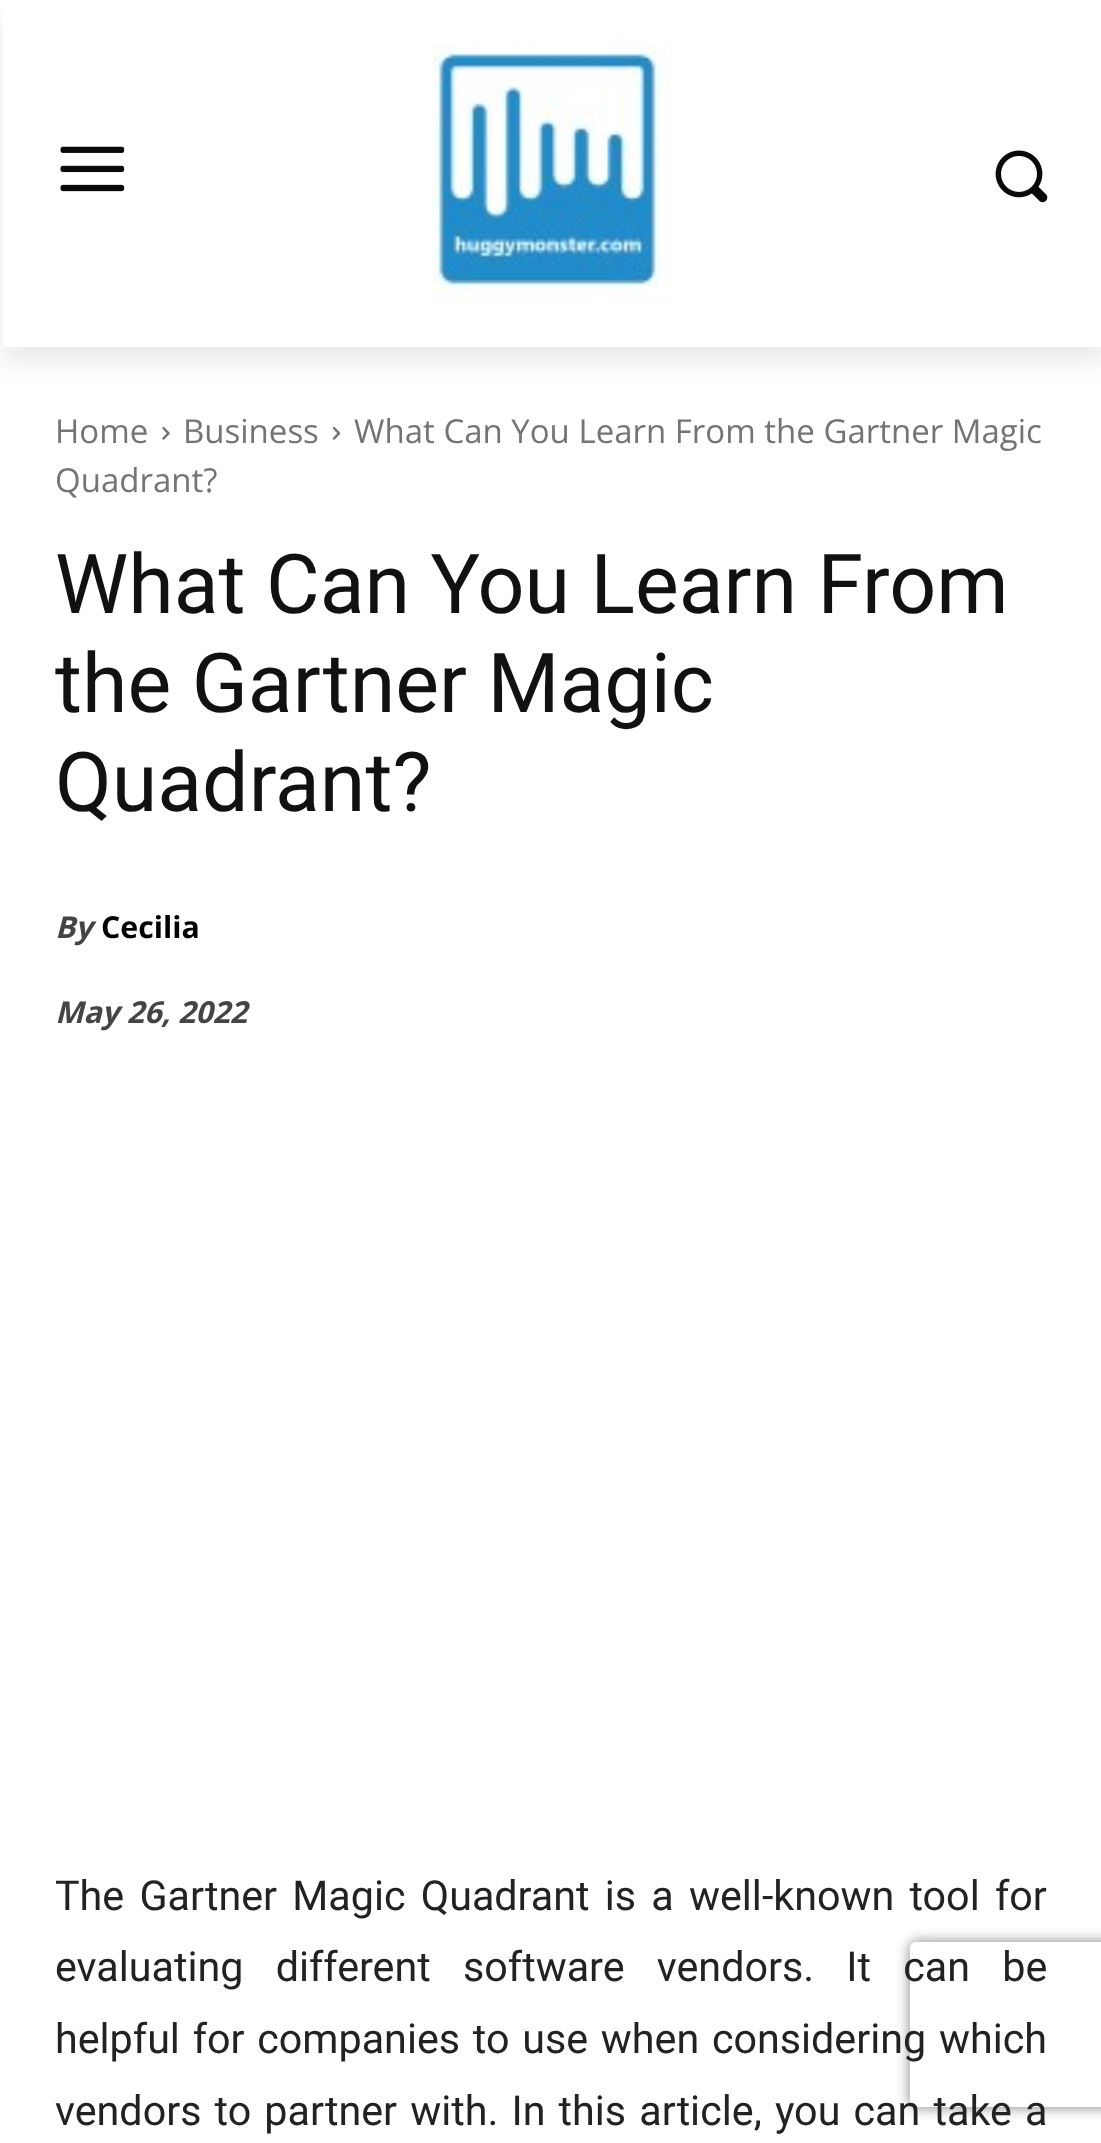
(async () => {
  const canvas = document.querySelector("canvas");
  canvas.width = 1101;
  canvas.height = 2143;
  const ctx = canvas.getContext("2d");
  ctx.miterLimit = 4;
  ctx.fontKerning = "normal";
  async function loadImage(src) {
    const img = new Image();
    img.src = src;
    await img.decode();
    return img;
  }
  let path;

  ctx.fillStyle = "#ffffff";
  ctx.fillRect(0, 0, 1101, 2143);
  ctx.drawImage(await loadImage("img/1.png"), 60, 146, 65, 46);
  ctx.drawImage(await loadImage("img/2.png"), 431, 43, 241, 264);
  ctx.drawImage(await loadImage("img/3.png"), 995, 150, 53, 53);
  ctx.save();
  path = new Path2D("M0 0H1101V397H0ZM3 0H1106V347H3Z");
  ctx.clip(path, "evenodd");
  ctx.fillStyle = "rgba(0, 0, 0, 0.08)";
  ctx.filter = "blur(11px)";
  ctx.beginPath();
  ctx.rect(3, 17, 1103, 346);
  ctx.fill();
  ctx.filter = "none";
  ctx.restore();
  ctx.drawImage(await loadImage("img/4.png"), 162, 426, 8, 14);
  ctx.drawImage(await loadImage("img/5.png"), 332, 426, 9, 14);
  ctx.save();
  path = new Path2D("M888 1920H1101V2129H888ZM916 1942H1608C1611.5 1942 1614 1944.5 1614 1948V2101C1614 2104.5 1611.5 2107 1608 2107H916C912.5 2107 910 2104.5 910 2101V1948C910 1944.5 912.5 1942 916 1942Z");
  ctx.clip(path, "evenodd");
  ctx.fillStyle = "#808080";
  ctx.filter = "blur(7px)";
  ctx.beginPath();
  ctx.roundRect(910, 1942, 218, 165, 6);
  ctx.fill();
  ctx.filter = "none";
  ctx.restore();
  ctx.font = "33px Open Sans";
  ctx.fillStyle = "#747474";
  for (const [text, x, y] of [
    ["Home", 55, 443],
    ["Business", 183, 443],
    ["What Can You Learn From the Gartner Magic", 354, 443],
    ["Quadrant?", 55, 492],
  ]) {
    ctx.fillText(text, x, y);
  }
  ctx.font = "82.5px Roboto";
  ctx.fillStyle = "#111111";
  for (const [text, x, y] of [
    ["What Can You Learn From", 55, 613],
    ["the Gartner Magic", 55, 712],
    ["Quadrant?", 55, 811],
  ]) {
    ctx.fillText(text, x, y);
  }
  ctx.font = "italic bold 30.25px Open Sans";
  ctx.fillStyle = "#444444";
  ctx.fillText("By", 55, 938);
  ctx.font = "bold 30.25px Open Sans";
  ctx.fillStyle = "#000000";
  ctx.fillText("Cecilia", 101, 938);
  ctx.font = "italic bold 30.25px Open Sans";
  ctx.fillStyle = "#444444";
  ctx.fillText("May 26, 2022", 55, 1023);
  ctx.wordSpacing = "5px";
  ctx.font = "41.25px Roboto";
  ctx.fillStyle = "#222222";
  ctx.fillText("The Gartner Magic Quadrant is a well-known tool for", 55, 1910);
  ctx.wordSpacing = "22px";
  ctx.fillText("evaluating different software vendors. It can be", 55, 1981);
  ctx.wordSpacing = "2.5px";
  ctx.fillText("helpful for companies to use when considering which", 55, 2053);
  ctx.wordSpacing = "2.9px";
  ctx.fillText("vendors to partner with. In this article, you can take a", 55, 2125);
})();
